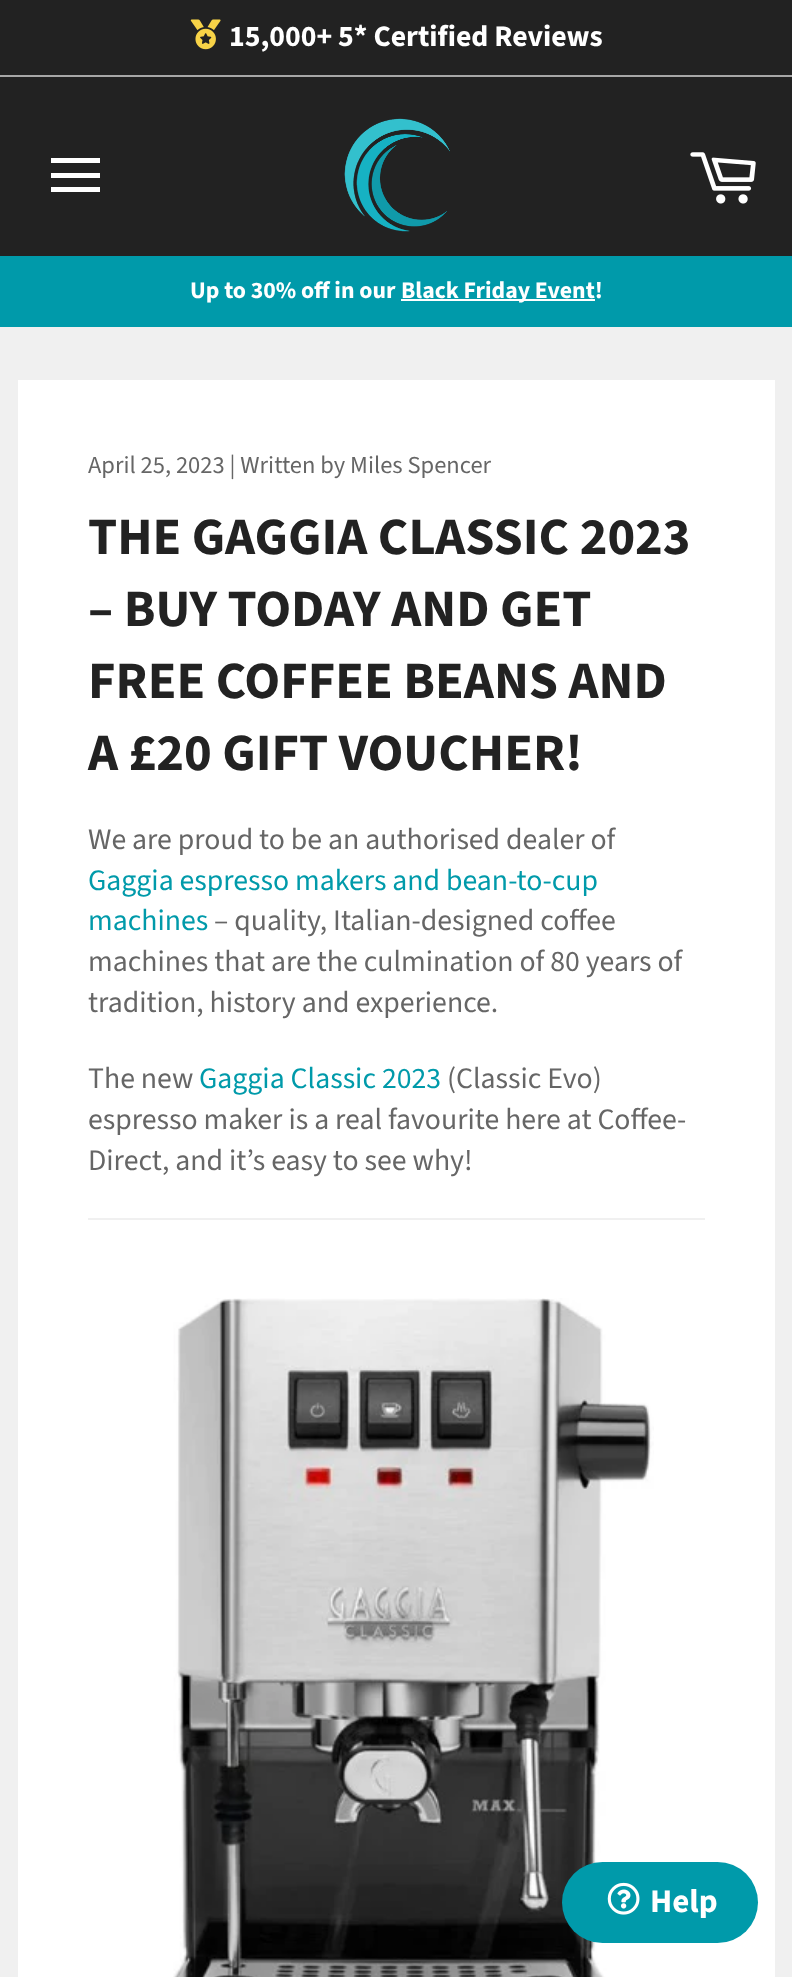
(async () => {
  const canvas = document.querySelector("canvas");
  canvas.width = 792;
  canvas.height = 1977;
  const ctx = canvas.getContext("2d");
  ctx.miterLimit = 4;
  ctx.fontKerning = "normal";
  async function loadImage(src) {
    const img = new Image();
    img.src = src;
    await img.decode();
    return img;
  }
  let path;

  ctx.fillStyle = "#f0f0f0";
  ctx.fillRect(0, 0, 792, 1977);
  ctx.fillStyle = "#222222";
  ctx.fillRect(0, 0, 792, 75);
  ctx.fillStyle = "#a7a7a7";
  ctx.fillRect(0, 75, 792, 2);
  ctx.drawImage(await loadImage("img/1.png"), 190, 19, 31, 31);
  ctx.fillStyle = "#222222";
  ctx.fillRect(0, 77, 792, 179);
  ctx.fillStyle = "#ffffff";
  path = new Path2D("M51 173H100V178H51ZM51 158H100V163H51ZM51 187H100V192H51Z");
  ctx.fill(path);
  ctx.drawImage(await loadImage("img/2.png"), 344, 118, 106, 114);
  ctx.drawImage(await loadImage("img/3.png"), 690, 152, 66, 52);
  for (const [x, y, w, h, color] of [
    [0, 256, 792, 71, "#009aaa"],
    [401, 299, 194, 2, "#ffffff"],
    [18, 380, 757, 1597, "#ffffff"],
    [88, 1218, 617, 2, "#f0f0f0"],
  ]) {
    ctx.fillStyle = color;
    ctx.fillRect(x, y, w, h);
  }
  ctx.drawImage(await loadImage("img/4.png"), 173, 1298, 481, 679);
  ctx.fillStyle = "#009aaa";
  ctx.beginPath();
  ctx.roundRect(562, 1862, 196, 81, 40.5);
  ctx.fill();
  ctx.drawImage(await loadImage("img/5.png"), 607, 1882, 33, 33);
  ctx.font = "bold 29.75px Source Sans Pro";
  ctx.fillStyle = "#ffffff";
  ctx.fillText("15,000+ 5* Certified Reviews", 229, 46);
  ctx.font = "bold 23.75px Source Sans Pro";
  ctx.fillText("Up to 30% off in our", 190, 298);
  ctx.fillText("Black Friday Event!", 401, 298);
  ctx.font = "24.5px Source Sans Pro";
  ctx.fillStyle = "#666666";
  ctx.fillText("April 25, 2023 | Written by Miles Spencer", 88, 473);
  ctx.font = "bold 52.5px Source Sans Pro";
  ctx.fillStyle = "#222222";
  for (const [text, x, y] of [
    ["THE GAGGIA CLASSIC 2023", 88, 554],
    ["– BUY TODAY AND GET", 88, 626],
    ["FREE COFFEE BEANS AND", 88, 698],
    ["A £20 GIFT VOUCHER!", 88, 770],
  ]) {
    ctx.fillText(text, x, y);
  }
  ctx.font = "29.75px Source Sans Pro";
  ctx.fillStyle = "#666666";
  ctx.fillText("We are proud to be an authorised dealer of", 88, 849);
  ctx.fillStyle = "#009aaa";
  ctx.fillText("Gaggia espresso makers and bean-to-cup", 88, 890);
  ctx.fillText("machines", 88, 930);
  ctx.fillStyle = "#666666";
  for (const [text, x, y] of [
    ["– quality, Italian-designed coffee", 214, 930],
    ["machines that are the culmination of 80 years of", 88, 971],
    ["tradition, history and experience.", 88, 1012],
    ["The new", 88, 1088],
  ]) {
    ctx.fillText(text, x, y);
  }
  ctx.fillStyle = "#009aaa";
  ctx.fillText("Gaggia Classic 2023", 199, 1088);
  ctx.fillStyle = "#666666";
  for (const [text, x, y] of [
    ["(Classic Evo)", 447, 1088],
    ["espresso maker is a real favourite here at Coffee-", 88, 1129],
    ["Direct, and it’s easy to see why!", 88, 1170],
  ]) {
    ctx.fillText(text, x, y);
  }
  ctx.font = "bold 33px Source Sans Pro";
  ctx.fillStyle = "#ffffff";
  ctx.fillText("Help", 650, 1912);
})();
